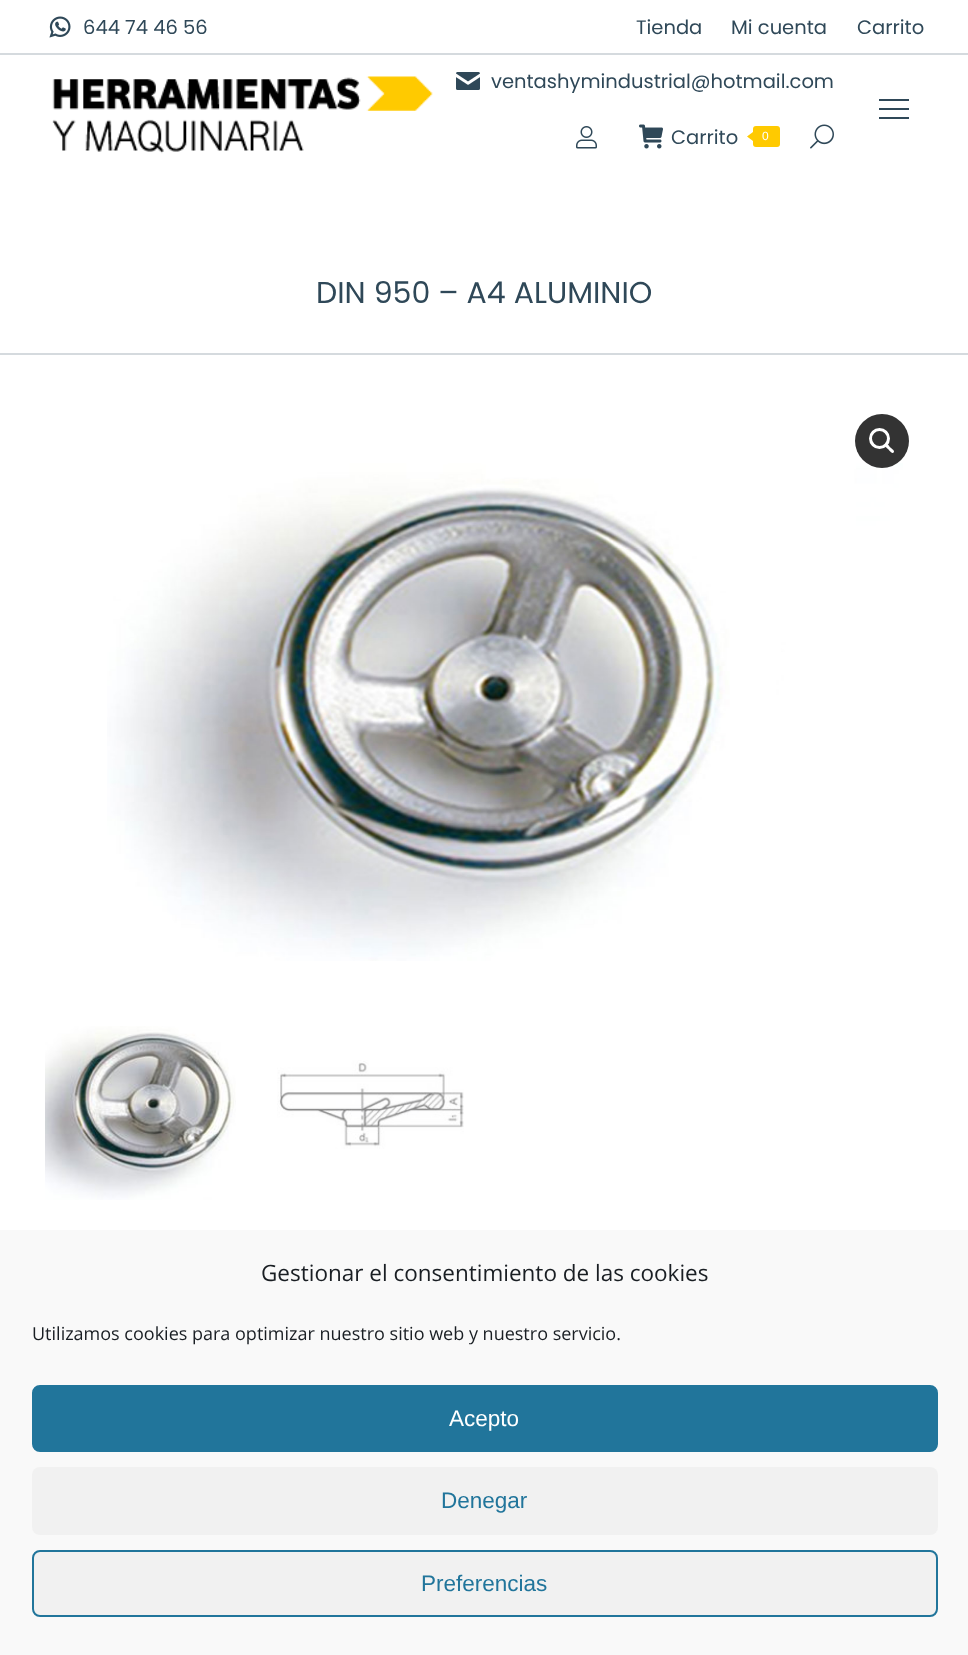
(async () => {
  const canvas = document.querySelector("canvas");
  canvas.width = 968;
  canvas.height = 1655;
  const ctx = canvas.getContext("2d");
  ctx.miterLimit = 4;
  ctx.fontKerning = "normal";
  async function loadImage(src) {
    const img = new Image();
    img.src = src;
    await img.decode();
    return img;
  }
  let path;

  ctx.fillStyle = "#ffffff";
  ctx.fillRect(0, 0, 968, 1655);
  ctx.drawImage(await loadImage("img/1.png"), 49, 16, 22, 22);
  ctx.fillStyle = "#d5dade";
  ctx.fillRect(0, 53, 968, 2);
  ctx.drawImage(await loadImage("img/2.png"), 52, 76, 381, 78);
  ctx.drawImage(await loadImage("img/3.png"), 456, 72, 24, 18);
  ctx.drawImage(await loadImage("img/4.png"), 576, 126, 21, 23);
  ctx.drawImage(await loadImage("img/5.png"), 639, 124, 24, 25);
  ctx.fillStyle = "#ffca00";
  ctx.beginPath();
  ctx.roundRect(753, 126, 27, 21, 3);
  ctx.fill();
  path = new Path2D("M753 132V141L747 136.5Z");
  ctx.fill(path);
  ctx.drawImage(await loadImage("img/6.png"), 810, 124, 24, 25);
  for (const [x, y, w, h, color] of [
    [879, 99, 30, 2, "#2f4858"],
    [879, 108, 30, 2, "#2f4858"],
    [879, 117, 30, 2, "#2f4858"],
    [0, 353, 968, 2, "#d5dade"],
  ]) {
    ctx.fillStyle = color;
    ctx.fillRect(x, y, w, h);
  }
  ctx.drawImage(await loadImage("img/7.png"), 107, 463, 796, 498);
  ctx.fillStyle = "rgba(0, 0, 0, 0.8)";
  ctx.beginPath();
  ctx.arc(882, 441, 27, 0, Math.PI * 2);
  ctx.fill();
  ctx.beginPath();
  ctx.arc(879.5, 438.5, 9, 0, Math.PI * 2);
  ctx.strokeStyle = "#ffffff";
  ctx.lineWidth = 3;
  ctx.stroke();
  ctx.fillStyle = "#ffffff";
  path = new Path2D("M885.5 444C887 442.5 889.5 446.5 890.5 447.5C891.5 448.5 895.5 451 893.5 452.5C892 454.5 889.5 450.5 888.5 449.5C887.5 448.5 883.5 446 885.5 444Z");
  ctx.fill(path);
  ctx.drawImage(await loadImage("img/8.png"), 45, 1026, 191, 174);
  ctx.drawImage(await loadImage("img/9.png"), 277, 1060, 187, 89);
  ctx.fillStyle = "#f9f9f9";
  ctx.fillRect(0, 1230, 968, 425);
  ctx.fillStyle = "#21759b";
  ctx.beginPath();
  ctx.roundRect(33, 1386, 904, 65, 7);
  ctx.fill();
  ctx.strokeStyle = "#21759b";
  ctx.lineWidth = 2;
  ctx.stroke();
  ctx.fillStyle = "#f1f1f1";
  ctx.beginPath();
  ctx.roundRect(32, 1467, 906, 68, 8);
  ctx.fill();
  ctx.beginPath();
  ctx.roundRect(33, 1551, 904, 65, 7);
  ctx.fill();
  ctx.stroke();
  ctx.font = "19.5px Poppins";
  ctx.fillStyle = "#2f4858";
  for (const [text, x, y] of [
    ["644 74 46 56", 83, 34],
    ["Tienda", 636, 34],
    ["Mi cuenta", 731, 34],
    ["Carrito", 857, 34],
    ["ventashymindustrial@hotmail.com", 491, 88],
    ["Carrito", 671, 144],
  ]) {
    ctx.fillText(text, x, y);
  }
  ctx.font = "12px Liberation Sans";
  ctx.fillStyle = "#ffffff";
  ctx.fillText("0", 762, 140);
  ctx.font = "30px Poppins";
  ctx.fillStyle = "#2f4858";
  ctx.fillText("DIN 950 – A4 ALUMINIO", 316, 303);
  ctx.font = "22.5px Open Sans";
  ctx.fillStyle = "#191e23";
  ctx.fillText("Gestionar el consentimiento de las cookies", 261, 1281);
  ctx.font = "18px Open Sans";
  ctx.fillText("Utilizamos cookies para optimizar nuestro sitio web y nuestro servicio.", 32, 1340);
  ctx.font = "22.5px Liberation Sans";
  ctx.fillStyle = "#ffffff";
  ctx.fillText("Acepto", 449, 1426);
  ctx.fillStyle = "#21759b";
  ctx.fillText("Denegar", 441, 1508);
  ctx.fillText("Preferencias", 421, 1591);
})();
